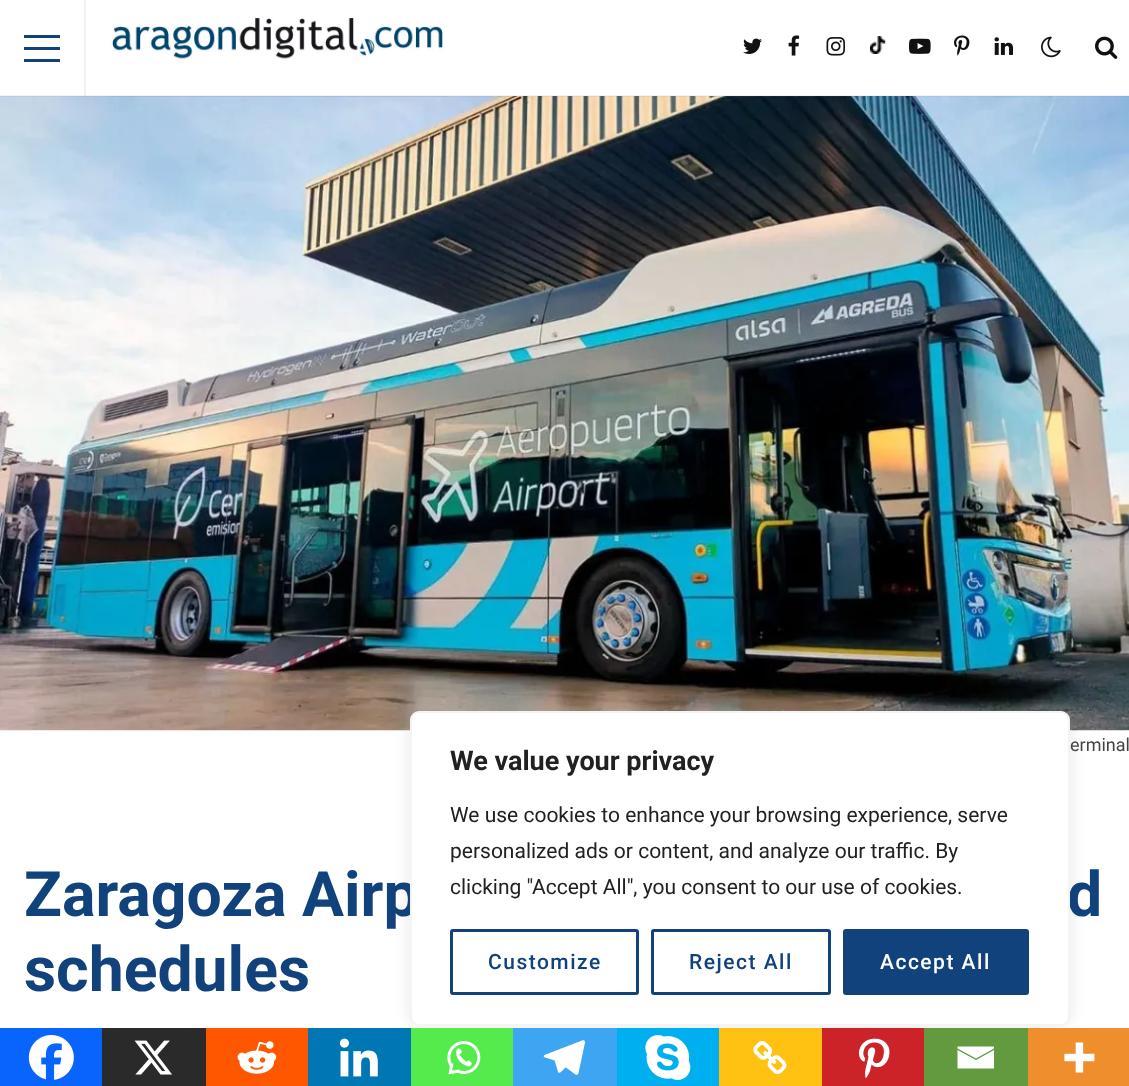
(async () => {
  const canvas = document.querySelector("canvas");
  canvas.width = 1129;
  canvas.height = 1086;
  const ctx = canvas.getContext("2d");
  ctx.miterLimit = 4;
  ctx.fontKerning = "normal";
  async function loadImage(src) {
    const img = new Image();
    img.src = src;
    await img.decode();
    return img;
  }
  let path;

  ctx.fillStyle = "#ffffff";
  ctx.fillRect(0, 0, 1129, 1086);
  ctx.drawImage(await loadImage("img/11.png"), 0, 96, 1129, 635);
  for (const [x, y, w, h, color] of [
    [0, 95, 1129, 2, "rgba(128, 128, 128, 0.1)"],
    [84, 0, 2, 96, "rgba(128, 128, 128, 0.1)"],
    [24, 47, 36, 3, "#11427b"],
    [24, 35, 36, 3, "#11427b"],
    [24, 59, 36, 3, "#11427b"],
    [110, 95, 337, 1, "#ffffff"],
    [110, 95, 337, 2, "rgba(128, 128, 128, 0.1)"],
  ]) {
    ctx.fillStyle = color;
    ctx.fillRect(x, y, w, h);
  }
  ctx.drawImage(await loadImage("img/1.png"), 110, 17, 334, 44);
  ctx.drawImage(await loadImage("img/2.png"), 743, 38, 19, 16);
  ctx.drawImage(await loadImage("img/3.png"), 788, 35, 12, 21);
  ctx.drawImage(await loadImage("img/4.png"), 826, 37, 19, 19);
  ctx.drawImage(await loadImage("img/5.png"), 870, 36, 16, 18);
  ctx.drawImage(await loadImage("img/6.png"), 909, 38, 22, 16);
  ctx.drawImage(await loadImage("img/7.png"), 954, 35, 16, 21);
  ctx.drawImage(await loadImage("img/8.png"), 994, 37, 19, 18);
  ctx.drawImage(await loadImage("img/9.png"), 1041, 36, 20, 22);
  ctx.drawImage(await loadImage("img/10.png"), 1095, 36, 23, 23);
  ctx.fillStyle = "#0765fe";
  ctx.fillRect(0, 1028, 102, 58);
  ctx.drawImage(await loadImage("img/12.png"), 28, 1035, 46, 45);
  ctx.fillStyle = "#2a2a2a";
  ctx.fillRect(102, 1028, 104, 58);
  ctx.drawImage(await loadImage("img/13.png"), 134, 1040, 38, 35);
  ctx.fillStyle = "#ff5700";
  ctx.fillRect(206, 1028, 102, 58);
  ctx.drawImage(await loadImage("img/14.png"), 237, 1041, 40, 33);
  ctx.fillStyle = "rgba(172, 171, 171, 0.3)";
  ctx.filter = "blur(7.5px)";
  ctx.beginPath();
  ctx.roundRect(410, 710, 660, 315, 9);
  ctx.fill();
  ctx.filter = "none";
  ctx.fillStyle = "#0077b5";
  ctx.fillRect(308, 1028, 103, 58);
  ctx.drawImage(await loadImage("img/15.png"), 339, 1038, 39, 39);
  ctx.fillStyle = "#55eb4c";
  ctx.fillRect(411, 1028, 102, 58);
  ctx.drawImage(await loadImage("img/16.png"), 447, 1041, 34, 34);
  ctx.fillStyle = "#3da5f1";
  ctx.fillRect(513, 1028, 104, 58);
  ctx.drawImage(await loadImage("img/17.png"), 543, 1040, 42, 35);
  ctx.fillStyle = "#00aff0";
  ctx.fillRect(617, 1028, 102, 58);
  ctx.drawImage(await loadImage("img/18.png"), 645, 1035, 46, 45);
  ctx.fillStyle = "#ffc112";
  ctx.fillRect(719, 1028, 103, 58);
  ctx.drawImage(await loadImage("img/19.png"), 753, 1041, 34, 33);
  ctx.fillStyle = "#cc2329";
  ctx.fillRect(822, 1028, 102, 58);
  ctx.drawImage(await loadImage("img/20.png"), 858, 1038, 32, 40);
  ctx.fillStyle = "#649a3f";
  ctx.fillRect(924, 1028, 104, 58);
  ctx.fillStyle = "#ffffff";
  path = new Path2D("M956 1046.5H994V1048.5L976 1058.5L957.5 1048.5V1046.5M957.5 1050L976 1060L994 1050V1068.5H957.5V1050");
  ctx.fill(path);
  ctx.fillStyle = "#ee8e2d";
  ctx.fillRect(1028, 1028, 101, 58);
  ctx.drawImage(await loadImage("img/21.png"), 1064, 1042, 31, 31);
  ctx.font = "18px Roboto";
  ctx.fillStyle = "#444444";
  ctx.fillText("erminal", 1070, 751);
  ctx.font = "bold 62.5px Roboto";
  ctx.fillStyle = "#11427b";
  for (const [text, x, y] of [
    ["Zaragoza Airp", 24, 916],
    ["d", 1067, 916],
    ["schedules", 24, 991],
  ]) {
    ctx.fillText(text, x, y);
  }
  ctx.fillStyle = "#ffffff";
  ctx.beginPath();
  ctx.roundRect(411, 712, 658, 313, 8);
  ctx.fill();
  ctx.strokeStyle = "#f4f4f4";
  ctx.lineWidth = 2;
  ctx.stroke();
  ctx.font = "bold 27px Roboto";
  ctx.fillStyle = "#212121";
  ctx.fillText("We value your privacy", 450, 770);
  ctx.font = "21px Roboto";
  for (const [text, x, y] of [
    ["We use cookies to enhance your browsing experience, serve", 450, 822],
    ["personalized ads or content, and analyze our traffic. By", 450, 858],
    ["clicking \"Accept All\", you consent to our use of cookies.", 450, 894],
  ]) {
    ctx.fillText(text, x, y);
  }
  ctx.beginPath();
  ctx.roundRect(451.5, 930.5, 186, 63, 1.5);
  ctx.strokeStyle = "#11427b";
  ctx.lineWidth = 3;
  ctx.stroke();
  ctx.letterSpacing = "1.5px";
  ctx.font = "500 21px Roboto";
  ctx.fillStyle = "#11427b";
  ctx.fillText("Customize", 488, 969);
  ctx.beginPath();
  ctx.roundRect(652.5, 930.5, 177, 63, 1.5);
  ctx.stroke();
  ctx.fillText("Reject All", 689, 969);
  ctx.beginPath();
  ctx.roundRect(844.5, 930.5, 183, 63, 1.5);
  ctx.fill();
  ctx.stroke();
  ctx.fillStyle = "#ffffff";
  ctx.fillText("Accept All", 880, 969);
})();
